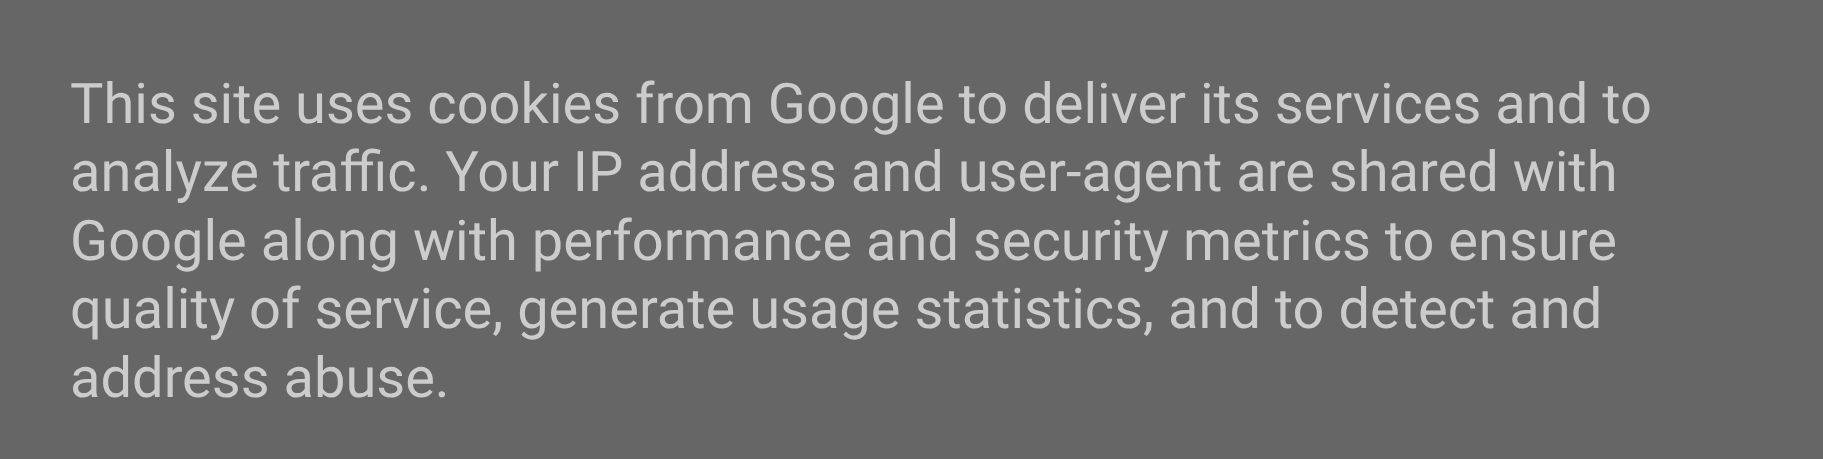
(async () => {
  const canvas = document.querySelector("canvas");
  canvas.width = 1823;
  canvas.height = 459;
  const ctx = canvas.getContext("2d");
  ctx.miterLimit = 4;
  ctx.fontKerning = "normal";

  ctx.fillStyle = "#666666";
  ctx.fillRect(0, 0, 1823, 459);
  ctx.font = "56px Roboto";
  ctx.fillStyle = "#cccccc";
  for (const [text, x, y] of [
    ["This site uses cookies from Google to deliver its services and to", 70, 123],
    ["analyze traffic. Your IP address and user-agent are shared with", 70, 191],
    ["Google along with performance and security metrics to ensure", 70, 260],
    ["quality of service, generate usage statistics, and to detect and", 70, 328],
    ["address abuse.", 70, 397],
  ]) {
    ctx.fillText(text, x, y);
  }
})();
